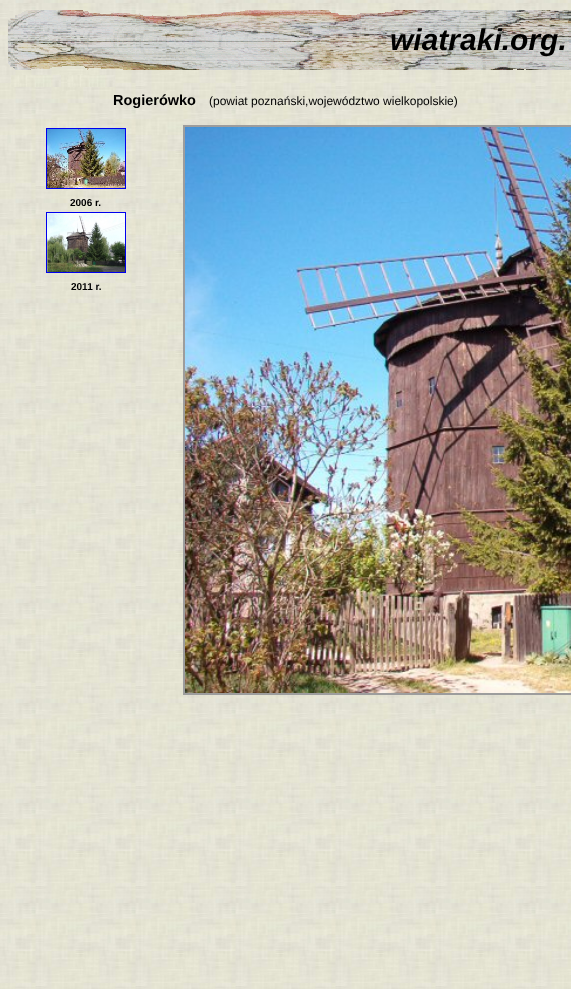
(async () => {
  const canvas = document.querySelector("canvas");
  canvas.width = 571;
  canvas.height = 989;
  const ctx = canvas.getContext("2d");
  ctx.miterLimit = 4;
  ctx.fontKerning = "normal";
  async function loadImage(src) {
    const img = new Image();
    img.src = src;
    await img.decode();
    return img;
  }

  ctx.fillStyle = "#ffffff";
  ctx.fillRect(0, 0, 571, 989);
  ctx.drawImage(await loadImage("img/1.png"), 0, 0, 571, 989);
  ctx.drawImage(await loadImage("img/2.png"), 8, 10, 563, 60);
  ctx.drawImage(await loadImage("img/3.png"), 11, 75, 50, 12);
  ctx.drawImage(await loadImage("img/4.png"), 67, 75, 48, 12);
  ctx.strokeStyle = "#0000ee";
  ctx.strokeRect(46.5, 128.5, 79, 60);
  ctx.drawImage(await loadImage("img/5.png"), 47, 129, 78, 59);
  ctx.strokeRect(46.5, 212.5, 79, 60);
  ctx.drawImage(await loadImage("img/6.png"), 47, 213, 78, 59);
  ctx.strokeStyle = "#9d9d9d";
  ctx.lineWidth = 2;
  ctx.strokeRect(184, 126, 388, 568);
  ctx.drawImage(await loadImage("img/7.png"), 185, 127, 386, 566);
  ctx.font = "italic bold 30px Liberation Sans";
  ctx.fillStyle = "#000000";
  ctx.fillText("wiatraki.org.", 390, 50);
  ctx.font = "bold 14.5px Liberation Sans";
  ctx.fillText("Rogierówko", 113, 105);
  ctx.font = "12px Liberation Sans";
  ctx.fillText("(powiat poznański,województwo wielkopolskie)", 209, 105);
  ctx.font = "bold 10px Liberation Sans";
  ctx.fillText("2006 r.", 70, 206);
  ctx.fillText("2011 r.", 71, 290);
})();
